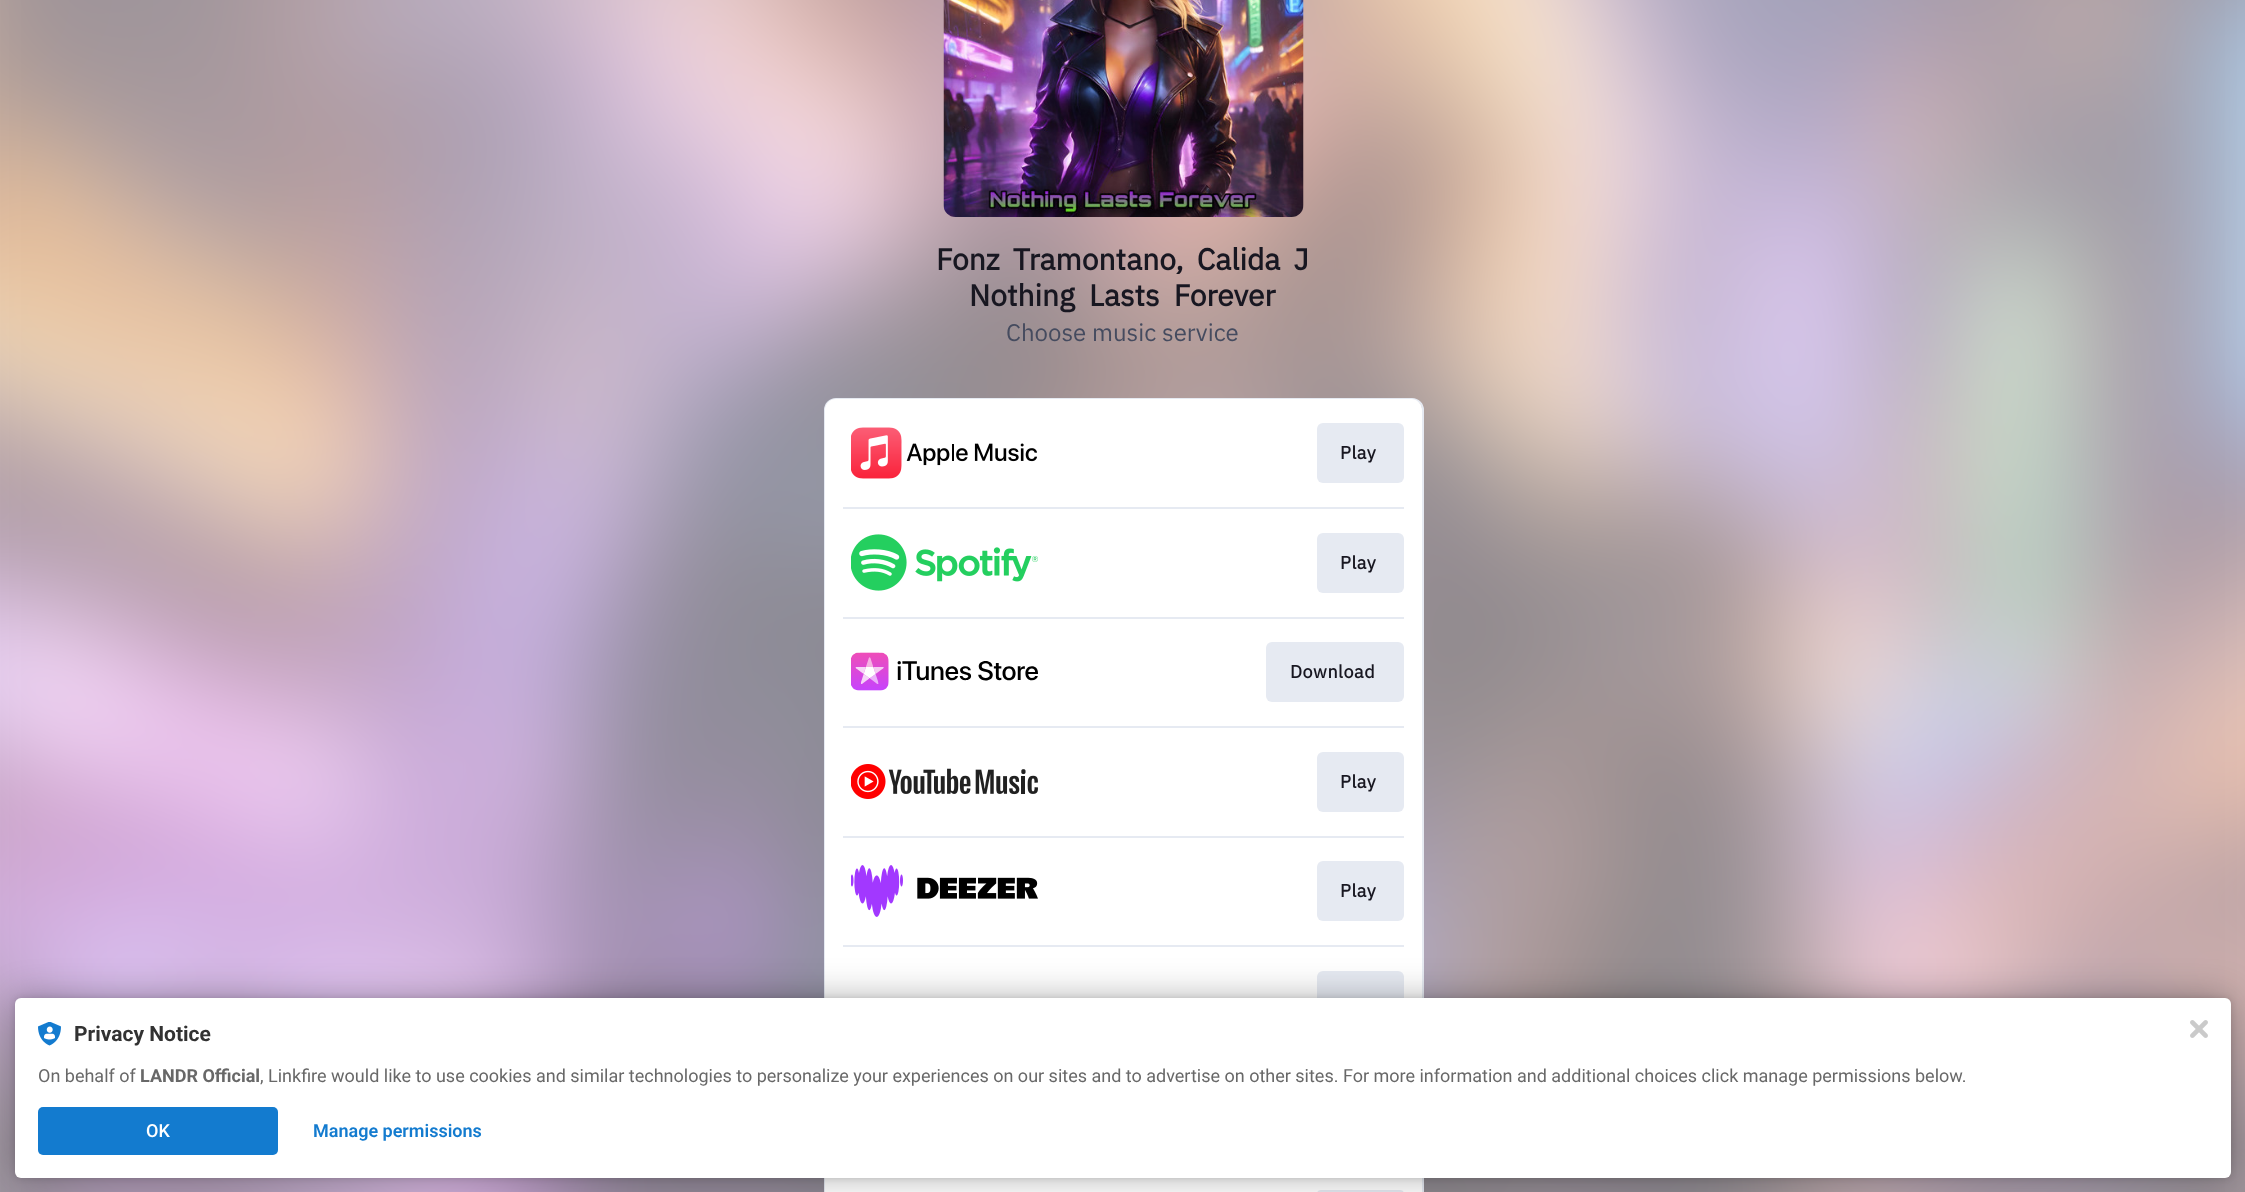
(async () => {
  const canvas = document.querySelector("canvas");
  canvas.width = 2245;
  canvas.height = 1192;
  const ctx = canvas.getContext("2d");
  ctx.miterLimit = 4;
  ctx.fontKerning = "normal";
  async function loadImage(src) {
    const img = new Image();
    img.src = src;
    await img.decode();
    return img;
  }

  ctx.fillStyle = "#ffffff";
  ctx.fillRect(0, 0, 2245, 1192);
  ctx.drawImage(await loadImage("img/1.png"), 0, 0, 2245, 1192);
  ctx.drawImage(await loadImage("img/2.png"), 943, 0, 361, 217);
  ctx.beginPath();
  ctx.roundRect(825, 399, 598, 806, 11);
  ctx.strokeStyle = "#e6eaf2";
  ctx.lineWidth = 2;
  ctx.stroke();
  ctx.beginPath();
  ctx.roundRect(825, 399, 597, 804, 11);
  ctx.fill();
  ctx.drawImage(await loadImage("img/3.png"), 851, 427, 186, 52);
  ctx.fillStyle = "#e6eaf2";
  ctx.beginPath();
  ctx.roundRect(1317, 423, 87, 60, 6);
  ctx.fill();
  ctx.fillRect(843, 507, 561, 2);
  ctx.drawImage(await loadImage("img/4.png"), 851, 534, 187, 57);
  ctx.beginPath();
  ctx.roundRect(1317, 533, 87, 60, 6);
  ctx.fill();
  ctx.fillRect(843, 617, 561, 2);
  ctx.drawImage(await loadImage("img/5.png"), 851, 652, 187, 39);
  ctx.beginPath();
  ctx.roundRect(1266, 642, 138, 60, 6);
  ctx.fill();
  ctx.fillRect(843, 726, 561, 2);
  ctx.drawImage(await loadImage("img/6.png"), 851, 764, 187, 35);
  ctx.beginPath();
  ctx.roundRect(1317, 752, 87, 60, 6);
  ctx.fill();
  ctx.fillRect(843, 836, 561, 2);
  ctx.drawImage(await loadImage("img/7.png"), 851, 865, 187, 52);
  ctx.beginPath();
  ctx.roundRect(1317, 861, 87, 60, 6);
  ctx.fill();
  ctx.fillRect(843, 945, 561, 2);
  ctx.beginPath();
  ctx.roundRect(1317, 971, 87, 60, 6);
  ctx.fill();
  ctx.beginPath();
  ctx.roundRect(1317, 1190, 87, 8, 6);
  ctx.fill();
  ctx.fillStyle = "rgba(0, 0, 0, 0.12)";
  ctx.filter = "blur(3px)";
  ctx.beginPath();
  ctx.roundRect(15, 998, 2216, 180, 6);
  ctx.fill();
  ctx.filter = "none";
  ctx.fillStyle = "rgba(0, 0, 0, 0.3)";
  ctx.filter = "blur(18px)";
  ctx.beginPath();
  ctx.roundRect(15, 998, 2216, 180, 6);
  ctx.fill();
  ctx.filter = "none";
  ctx.fillStyle = "#ffffff";
  ctx.beginPath();
  ctx.roundRect(15, 998, 2216, 180, 6);
  ctx.fill();
  ctx.drawImage(await loadImage("img/8.png"), 38, 1022, 23, 24);
  ctx.fillStyle = "#137bcf";
  ctx.beginPath();
  ctx.roundRect(38, 1107, 240, 48, 5);
  ctx.fill();
  ctx.drawImage(await loadImage("img/9.png"), 2190, 1020, 18, 18);
  ctx.wordSpacing = "6px";
  ctx.font = "bold 30px IBM Plex Sans";
  ctx.fillStyle = "#181721";
  ctx.fillText("Fonz Tramontano, Calida J", 936, 270);
  ctx.wordSpacing = "7px";
  ctx.fillText("Nothing Lasts Forever", 969, 306);
  ctx.wordSpacing = "0px";
  ctx.font = "24px IBM Plex Sans";
  ctx.fillStyle = "#454b5f";
  ctx.fillText("Choose music service", 1006, 341);
  ctx.letterSpacing = "0.5px";
  ctx.font = "bold 18px IBM Plex Sans";
  ctx.fillStyle = "#181721";
  for (const [text, x, y] of [
    ["Play", 1340, 459],
    ["Play", 1340, 569],
    ["Download", 1290, 678],
    ["Play", 1340, 788],
    ["Play", 1340, 897],
  ]) {
    ctx.fillText(text, x, y);
  }
  ctx.letterSpacing = "0px";
  ctx.font = "bold 21px Roboto";
  ctx.fillStyle = "#323232";
  ctx.fillText("Privacy Notice", 74, 1041);
  ctx.font = "18px Roboto";
  ctx.fillStyle = "#686868";
  ctx.fillText("On behalf of", 38, 1082);
  ctx.font = "bold 18px Roboto";
  ctx.fillText("LANDR Official", 140, 1082);
  ctx.font = "18px Roboto";
  ctx.fillText(", Linkfire would like to use cookies and similar technologies to personalize your experiences on our sites and to advertise on other sites. For more information and additional choices click manage permissions below.", 260, 1082);
  ctx.font = "500 18px Roboto";
  ctx.fillStyle = "#ffffff";
  ctx.fillText("OK", 146, 1137);
  ctx.font = "600 18px Roboto";
  ctx.fillStyle = "#137bcf";
  ctx.fillText("Manage permissions", 313, 1137);
})();
